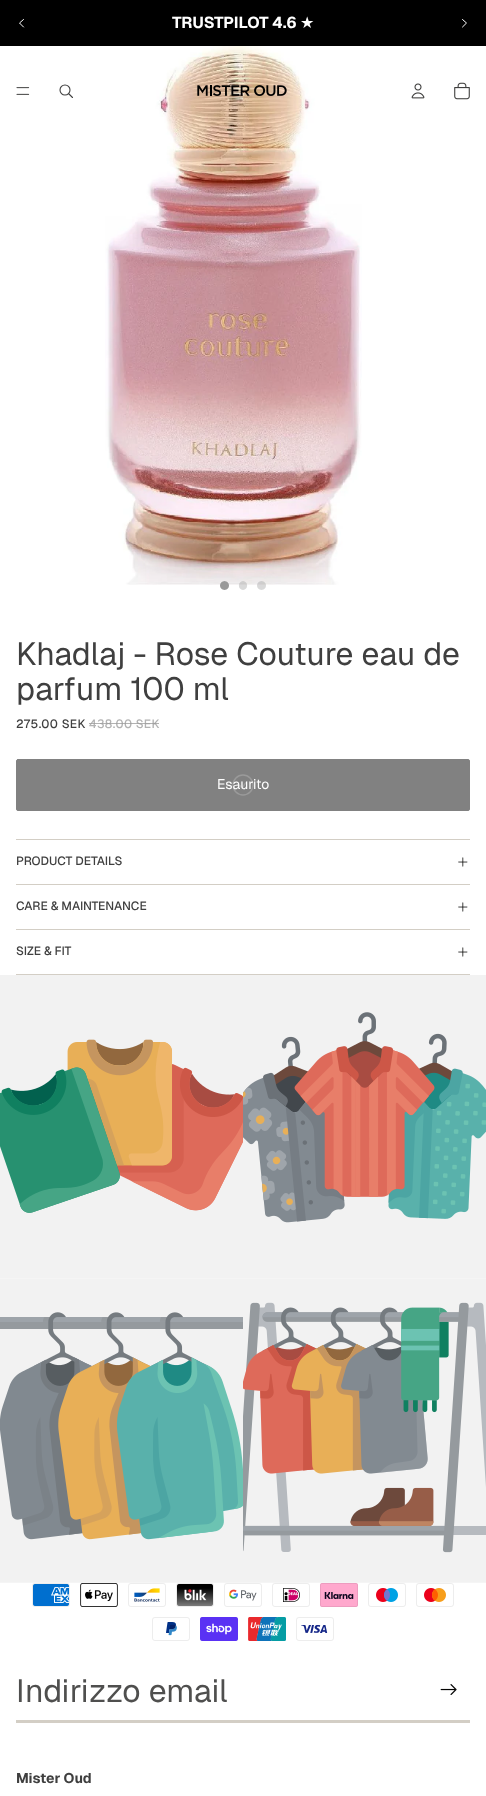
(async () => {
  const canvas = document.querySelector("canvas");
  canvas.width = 486;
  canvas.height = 1796;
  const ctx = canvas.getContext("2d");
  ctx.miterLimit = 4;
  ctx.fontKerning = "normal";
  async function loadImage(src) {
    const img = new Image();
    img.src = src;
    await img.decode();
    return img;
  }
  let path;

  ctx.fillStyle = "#ffffff";
  ctx.fillRect(0, 0, 486, 1796);
  ctx.fillStyle = "#000000";
  ctx.fillRect(0, 0, 486, 46);
  path = new Path2D("M23.5 19.5L19.5 23L23.5 27");
  ctx.strokeStyle = "#ffffff";
  ctx.lineCap = "round";
  ctx.lineJoin = "round";
  ctx.stroke(path);
  path = new Path2D("M462.5 19.5L466.5 23L462.5 27");
  ctx.stroke(path);
  ctx.drawImage(await loadImage("img/1.png"), 16, 87, 14, 8);
  ctx.beginPath();
  ctx.arc(65, 90, 5, 0, Math.PI * 2);
  ctx.strokeStyle = "#3f3f3f";
  ctx.lineWidth = 1.1;
  ctx.stroke();
  path = new Path2D("M69 94L72.5 97.5");
  ctx.stroke(path);
  ctx.drawImage(await loadImage("img/5.png"), 105, 46, 257, 539);
  ctx.drawImage(await loadImage("img/2.png"), 197, 85, 90, 11);
  ctx.drawImage(await loadImage("img/3.png"), 411, 83, 14, 16);
  ctx.drawImage(await loadImage("img/4.png"), 454, 82, 16, 18);
  ctx.fillStyle = "#ffffff";
  ctx.beginPath();
  ctx.arc(224.5, 585.5, 4.5, 0, Math.PI * 2);
  ctx.fill();
  ctx.fillStyle = "rgba(0, 0, 0, 0.4)";
  path = new Path2D("M224.5 581C230.5 581 230.5 590 224.5 590C218.5 590 218.5 581 224.5 581Z");
  ctx.fill(path);
  ctx.fillStyle = "rgba(255, 255, 255, 0.3)";
  ctx.beginPath();
  ctx.roundRect(239, 581, 8, 9, 4);
  ctx.fill();
  ctx.fillStyle = "rgba(0, 0, 0, 0.15)";
  path = new Path2D("M243 581C248.5 581 248.5 590 243 590C237.5 590 237.5 581 243 581Z");
  ctx.fill(path);
  ctx.fillStyle = "rgba(255, 255, 255, 0.3)";
  ctx.beginPath();
  ctx.arc(261.5, 585.5, 4.5, 0, Math.PI * 2);
  ctx.fill();
  ctx.fillStyle = "rgba(0, 0, 0, 0.15)";
  path = new Path2D("M261.5 581C267.5 581 267.5 590 261.5 590C255.5 590 255.5 581 261.5 581Z");
  ctx.fill(path);
  ctx.fillStyle = "#818181";
  ctx.beginPath();
  ctx.roundRect(16.5, 759.5, 453, 51, 1.5);
  ctx.fill();
  ctx.strokeStyle = "#818181";
  ctx.lineWidth = 1;
  ctx.lineJoin = "miter";
  ctx.stroke();
  ctx.fillStyle = "#d3cec5";
  ctx.fillRect(16, 839, 454, 1);
  ctx.drawImage(await loadImage("img/6.png"), 458, 857, 10, 10);
  ctx.fillRect(16, 884, 454, 1);
  ctx.drawImage(await loadImage("img/6.png"), 458, 902, 10, 10);
  ctx.fillRect(16, 929, 454, 1);
  ctx.fillRect(16, 974, 454, 1);
  ctx.drawImage(await loadImage("img/6.png"), 458, 947, 10, 10);
  ctx.drawImage(await loadImage("img/7.png"), 0, 975, 243, 304);
  ctx.drawImage(await loadImage("img/8.png"), 243, 975, 243, 304);
  ctx.drawImage(await loadImage("img/9.png"), 0, 1279, 243, 304);
  ctx.drawImage(await loadImage("img/10.png"), 243, 1279, 243, 304);
  ctx.drawImage(await loadImage("img/11.png"), 32, 1583, 38, 24);
  ctx.drawImage(await loadImage("img/12.png"), 80, 1583, 38, 24);
  ctx.drawImage(await loadImage("img/13.png"), 128, 1583, 38, 24);
  ctx.drawImage(await loadImage("img/14.png"), 176, 1583, 38, 24);
  ctx.drawImage(await loadImage("img/15.png"), 224, 1583, 38, 24);
  ctx.drawImage(await loadImage("img/16.png"), 272, 1583, 38, 24);
  ctx.drawImage(await loadImage("img/17.png"), 320, 1583, 38, 24);
  ctx.drawImage(await loadImage("img/18.png"), 368, 1583, 38, 24);
  ctx.drawImage(await loadImage("img/19.png"), 416, 1583, 38, 24);
  ctx.drawImage(await loadImage("img/20.png"), 152, 1617, 38, 24);
  ctx.drawImage(await loadImage("img/21.png"), 200, 1617, 38, 24);
  ctx.drawImage(await loadImage("img/22.png"), 248, 1617, 38, 24);
  ctx.drawImage(await loadImage("img/23.png"), 296, 1617, 38, 24);
  ctx.fillRect(16, 1720, 454, 3);
  ctx.drawImage(await loadImage("img/24.png"), 440, 1684, 17, 11);
  ctx.font = "bold 16px Geist";
  ctx.fillStyle = "#ffffff";
  ctx.fillText("TRUSTPILOT 4.6", 172, 28);
  ctx.font = "16px DejaVu Sans";
  ctx.fillText("★", 300, 28);
  ctx.font = "32px Geist";
  ctx.fillStyle = "#3f3f3f";
  ctx.fillText("Khadlaj - Rose Couture eau de", 16, 665);
  ctx.fillText("parfum 100 ml", 16, 700);
  ctx.letterSpacing = "0.4px";
  ctx.font = "500 12px Geist";
  ctx.fillText("275.00 SEK", 16, 728);
  ctx.fillStyle = "#b2b2b2";
  ctx.fillText("438.00 SEK", 89, 728);
  ctx.fillStyle = "rgba(154, 154, 154, 0.76)";
  ctx.fillRect(89, 723, 70, 1);
  ctx.letterSpacing = "0px";
  ctx.font = "14px Geist";
  ctx.fillStyle = "#ffffff";
  ctx.fillText("Esaurito", 217, 789);
  ctx.beginPath();
  ctx.arc(243, 785, 10, 0, Math.PI * 2);
  ctx.strokeStyle = "rgba(255, 255, 255, 0.2)";
  ctx.lineWidth = 1.5;
  ctx.stroke();
  path = new Path2D("M240 785.5L242 788L246 782.5");
  ctx.lineJoin = "round";
  ctx.stroke(path);
  ctx.font = "500 12px Geist";
  ctx.fillStyle = "#3f3f3f";
  for (const [text, x, y] of [
    ["PRODUCT DETAILS", 16, 865],
    ["CARE & MAINTENANCE", 16, 910],
    ["SIZE & FIT", 16, 955],
  ]) {
    ctx.fillText(text, x, y);
  }
  ctx.font = "32px Geist";
  ctx.fillStyle = "#4f4f4e";
  ctx.fillText("Indirizzo email", 16, 1702);
  ctx.font = "bold 14px Geist";
  ctx.fillStyle = "#3f3f3f";
  ctx.fillText("Mister Oud", 16, 1783);
})();
